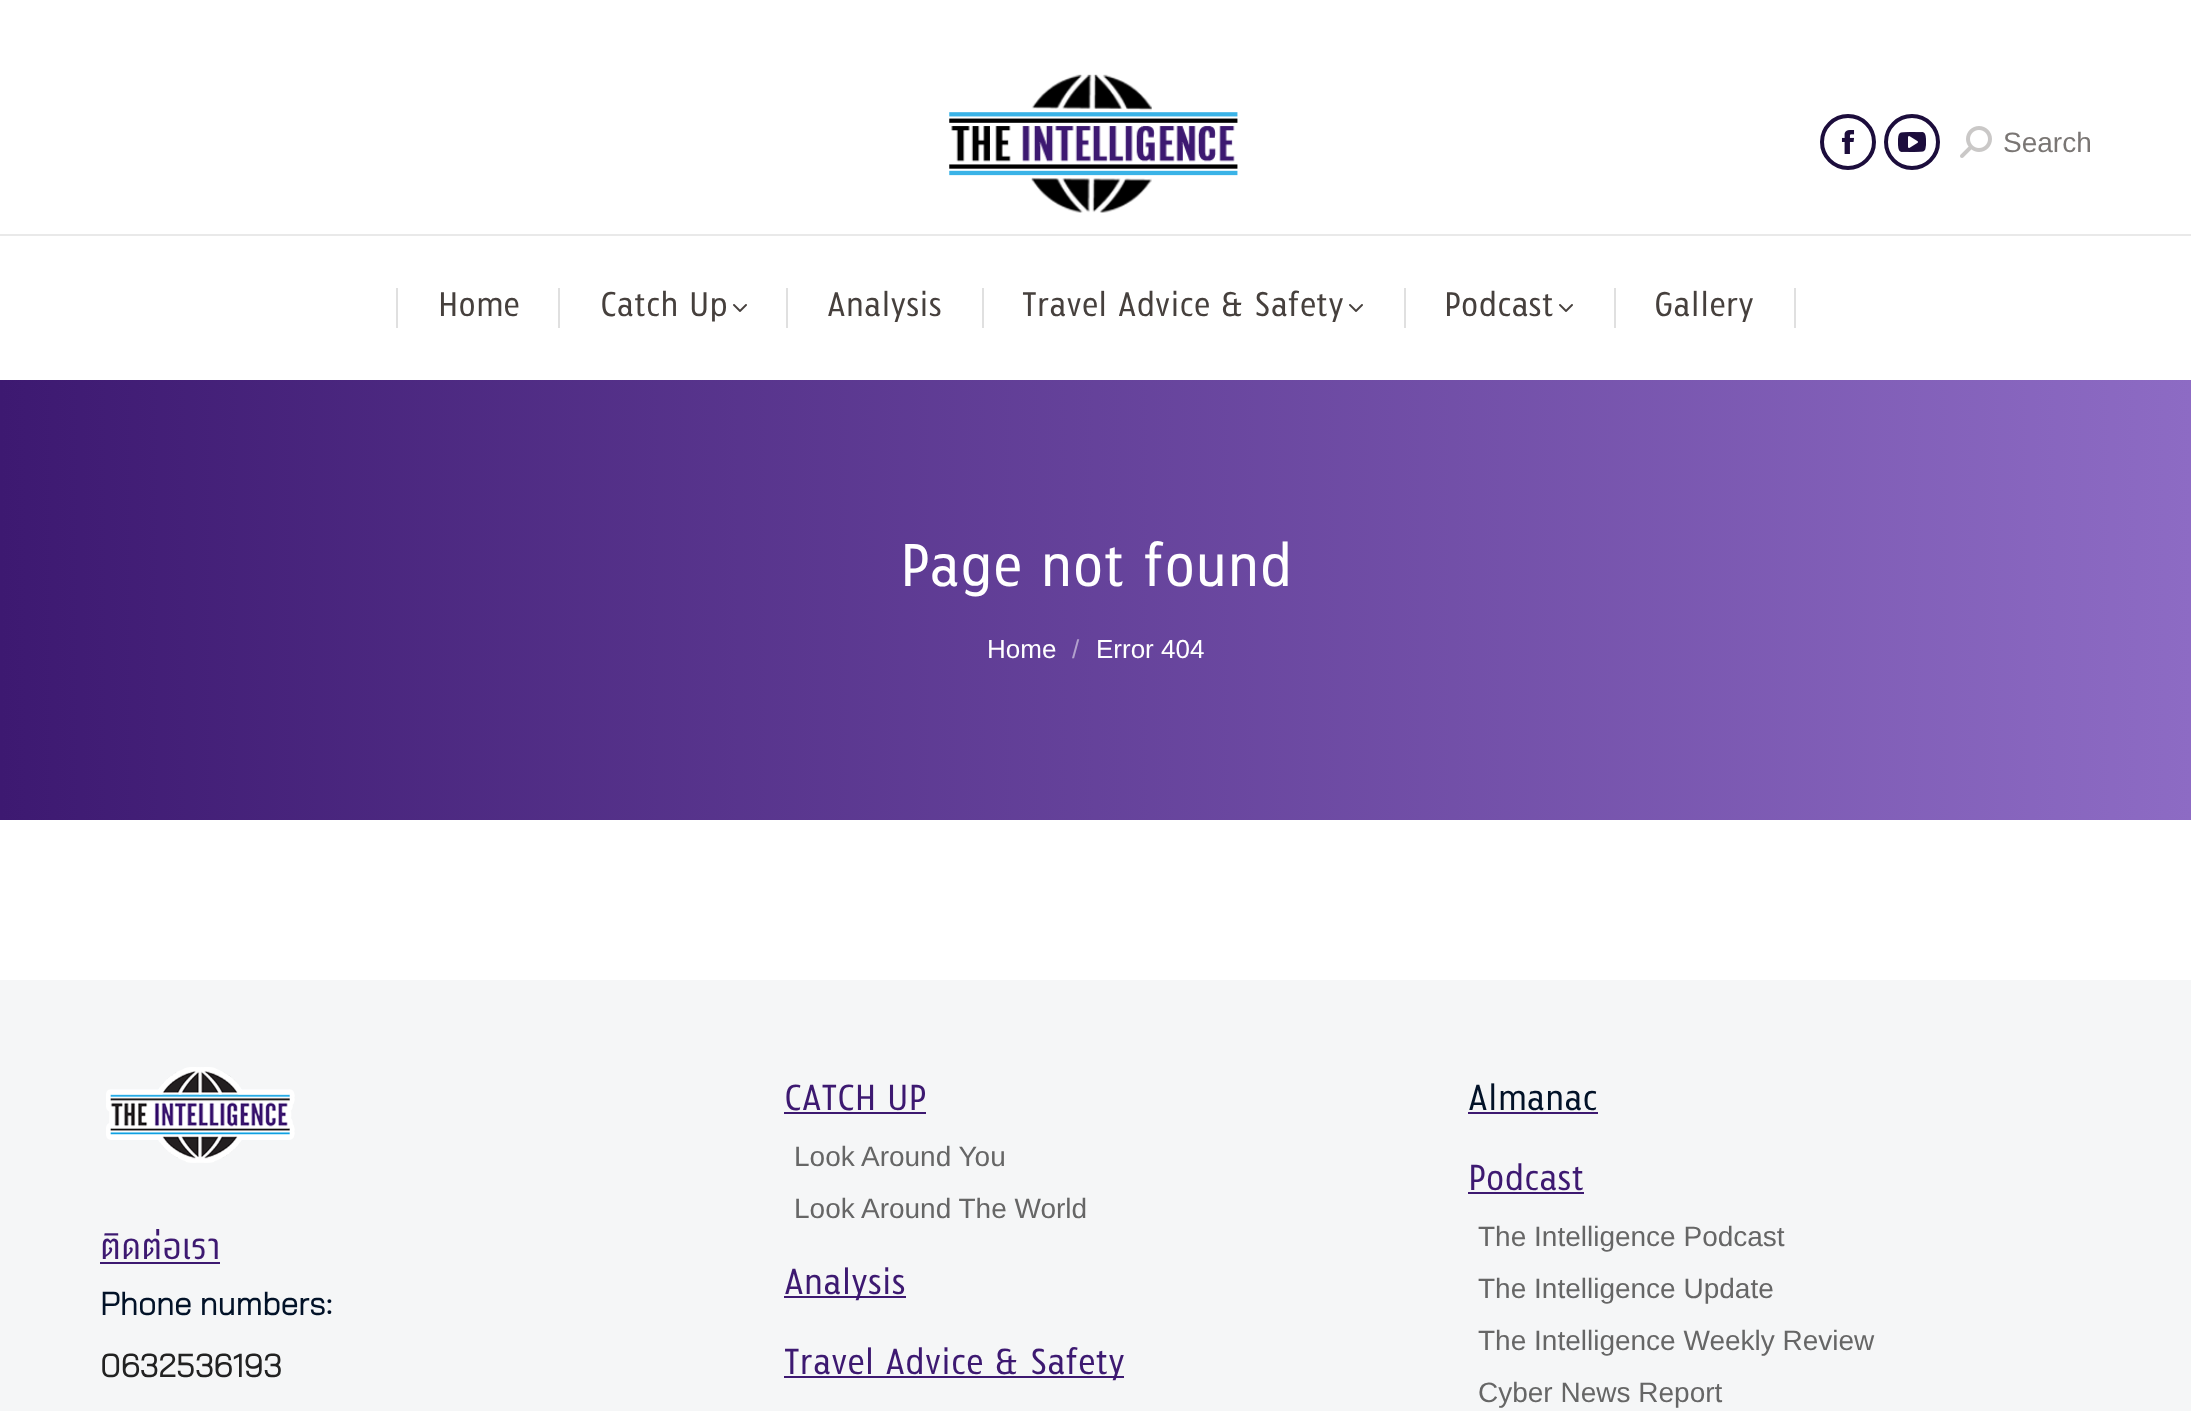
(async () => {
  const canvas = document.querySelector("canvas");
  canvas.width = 2191;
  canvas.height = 1411;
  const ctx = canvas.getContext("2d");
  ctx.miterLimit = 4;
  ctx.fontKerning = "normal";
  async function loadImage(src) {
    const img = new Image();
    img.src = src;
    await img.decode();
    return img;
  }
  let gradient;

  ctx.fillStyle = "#ffffff";
  ctx.fillRect(0, 0, 2191, 1411);
  ctx.drawImage(await loadImage("img/1.png"), 949, 74, 289, 139);
  ctx.beginPath();
  ctx.arc(1848, 142, 26, 0, Math.PI * 2);
  ctx.strokeStyle = "#1c0d3c";
  ctx.lineWidth = 4;
  ctx.stroke();
  ctx.drawImage(await loadImage("img/2.png"), 1841, 130, 14, 24);
  ctx.beginPath();
  ctx.arc(1912, 142, 26, 0, Math.PI * 2);
  ctx.stroke();
  ctx.drawImage(await loadImage("img/3.png"), 1898, 132, 28, 20);
  ctx.drawImage(await loadImage("img/4.png"), 1960, 126, 32, 32);
  for (const [x, y, w, h, color] of [
    [0, 234, 2191, 2, "#e9e9e9"],
    [396, 288, 2, 40, "#e0e0e0"],
    [558, 288, 2, 40, "#e0e0e0"],
  ]) {
    ctx.fillStyle = color;
    ctx.fillRect(x, y, w, h);
  }
  ctx.drawImage(await loadImage("img/5.png"), 733, 304, 14, 8);
  ctx.fillRect(786, 288, 2, 40);
  ctx.fillRect(982, 288, 2, 40);
  ctx.drawImage(await loadImage("img/5.png"), 1349, 304, 14, 8);
  ctx.fillRect(1404, 288, 2, 40);
  ctx.drawImage(await loadImage("img/5.png"), 1559, 304, 14, 8);
  ctx.fillRect(1614, 288, 2, 40);
  ctx.fillRect(1794, 288, 2, 40);
  gradient = ctx.createLinearGradient(0, 600, 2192, 600);
  gradient.addColorStop(0, "#3d1971");
  gradient.addColorStop(1, "#8d6bc4");
  ctx.fillStyle = gradient;
  ctx.fillRect(0, 380, 2191, 440);
  ctx.fillStyle = "#f5f6f7";
  ctx.fillRect(0, 980, 2191, 431);
  ctx.drawImage(await loadImage("img/6.png"), 106, 1067, 189, 96);
  for (const [x, y, w, h, color] of [
    [100, 1262, 120, 2, "#3d1971"],
    [784, 1112, 142, 2, "#3d1971"],
    [784, 1296, 122, 2, "#3d1971"],
    [784, 1376, 340, 2, "#3d1971"],
    [1468, 1112, 130, 2, "#3d1971"],
    [1468, 1192, 116, 2, "#3d1971"],
  ]) {
    ctx.fillStyle = color;
    ctx.fillRect(x, y, w, h);
  }
  ctx.font = "28px Liberation Sans";
  ctx.fillStyle = "#7a7674";
  ctx.fillText("Search", 2003, 152);
  ctx.font = "34px 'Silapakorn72'";
  ctx.fillStyle = "#46403d";
  for (const [text, x, y] of [
    ["Home", 438, 316],
    ["Catch Up", 600, 316],
    ["Analysis", 827, 316],
    ["Travel Advice & Safety", 1022, 316],
    ["Podcast", 1444, 316],
    ["Gallery", 1654, 316],
  ]) {
    ctx.fillText(text, x, y);
  }
  ctx.font = "60px 'Silapakorn72'";
  ctx.fillStyle = "#ffffff";
  ctx.fillText("Page not found", 900, 586);
  ctx.font = "26px Liberation Sans";
  ctx.fillText("Home", 987, 658);
  ctx.fillStyle = "#b2a0cd";
  ctx.fillText("/", 1072, 658);
  ctx.fillStyle = "#ffffff";
  ctx.fillText("Error 404", 1096, 658);
  ctx.font = "36px 'Silapakorn72'";
  ctx.fillStyle = "#3d1971";
  ctx.fillText("ติดต่อเรา", 100, 1259);
  ctx.font = "bold 32px Bai Jamjuree";
  ctx.fillStyle = "#021228";
  ctx.fillText("Phone numbers:", 100, 1315);
  ctx.fillStyle = "#222222";
  ctx.fillText("0632536193", 100, 1377);
  ctx.font = "36px 'Silapakorn72'";
  ctx.fillStyle = "#3d1971";
  ctx.fillText("CATCH UP", 784, 1110);
  ctx.font = "28px Liberation Sans";
  ctx.fillStyle = "#666666";
  ctx.fillText("Look Around You", 794, 1166);
  ctx.fillText("Look Around The World", 794, 1218);
  ctx.font = "36px 'Silapakorn72'";
  ctx.fillStyle = "#3d1971";
  ctx.fillText("Analysis", 784, 1294);
  ctx.fillText("Travel Advice & Safety", 784, 1374);
  ctx.fillStyle = "#021228";
  ctx.fillText("Almanac", 1468, 1110);
  ctx.fillStyle = "#3d1971";
  ctx.fillText("Podcast", 1468, 1190);
  ctx.font = "28px Liberation Sans";
  ctx.fillStyle = "#666666";
  for (const [text, x, y] of [
    ["The Intelligence Podcast", 1478, 1246],
    ["The Intelligence Update", 1478, 1298],
    ["The Intelligence Weekly Review", 1478, 1350],
    ["Cyber News Report", 1478, 1402],
  ]) {
    ctx.fillText(text, x, y);
  }
})();
